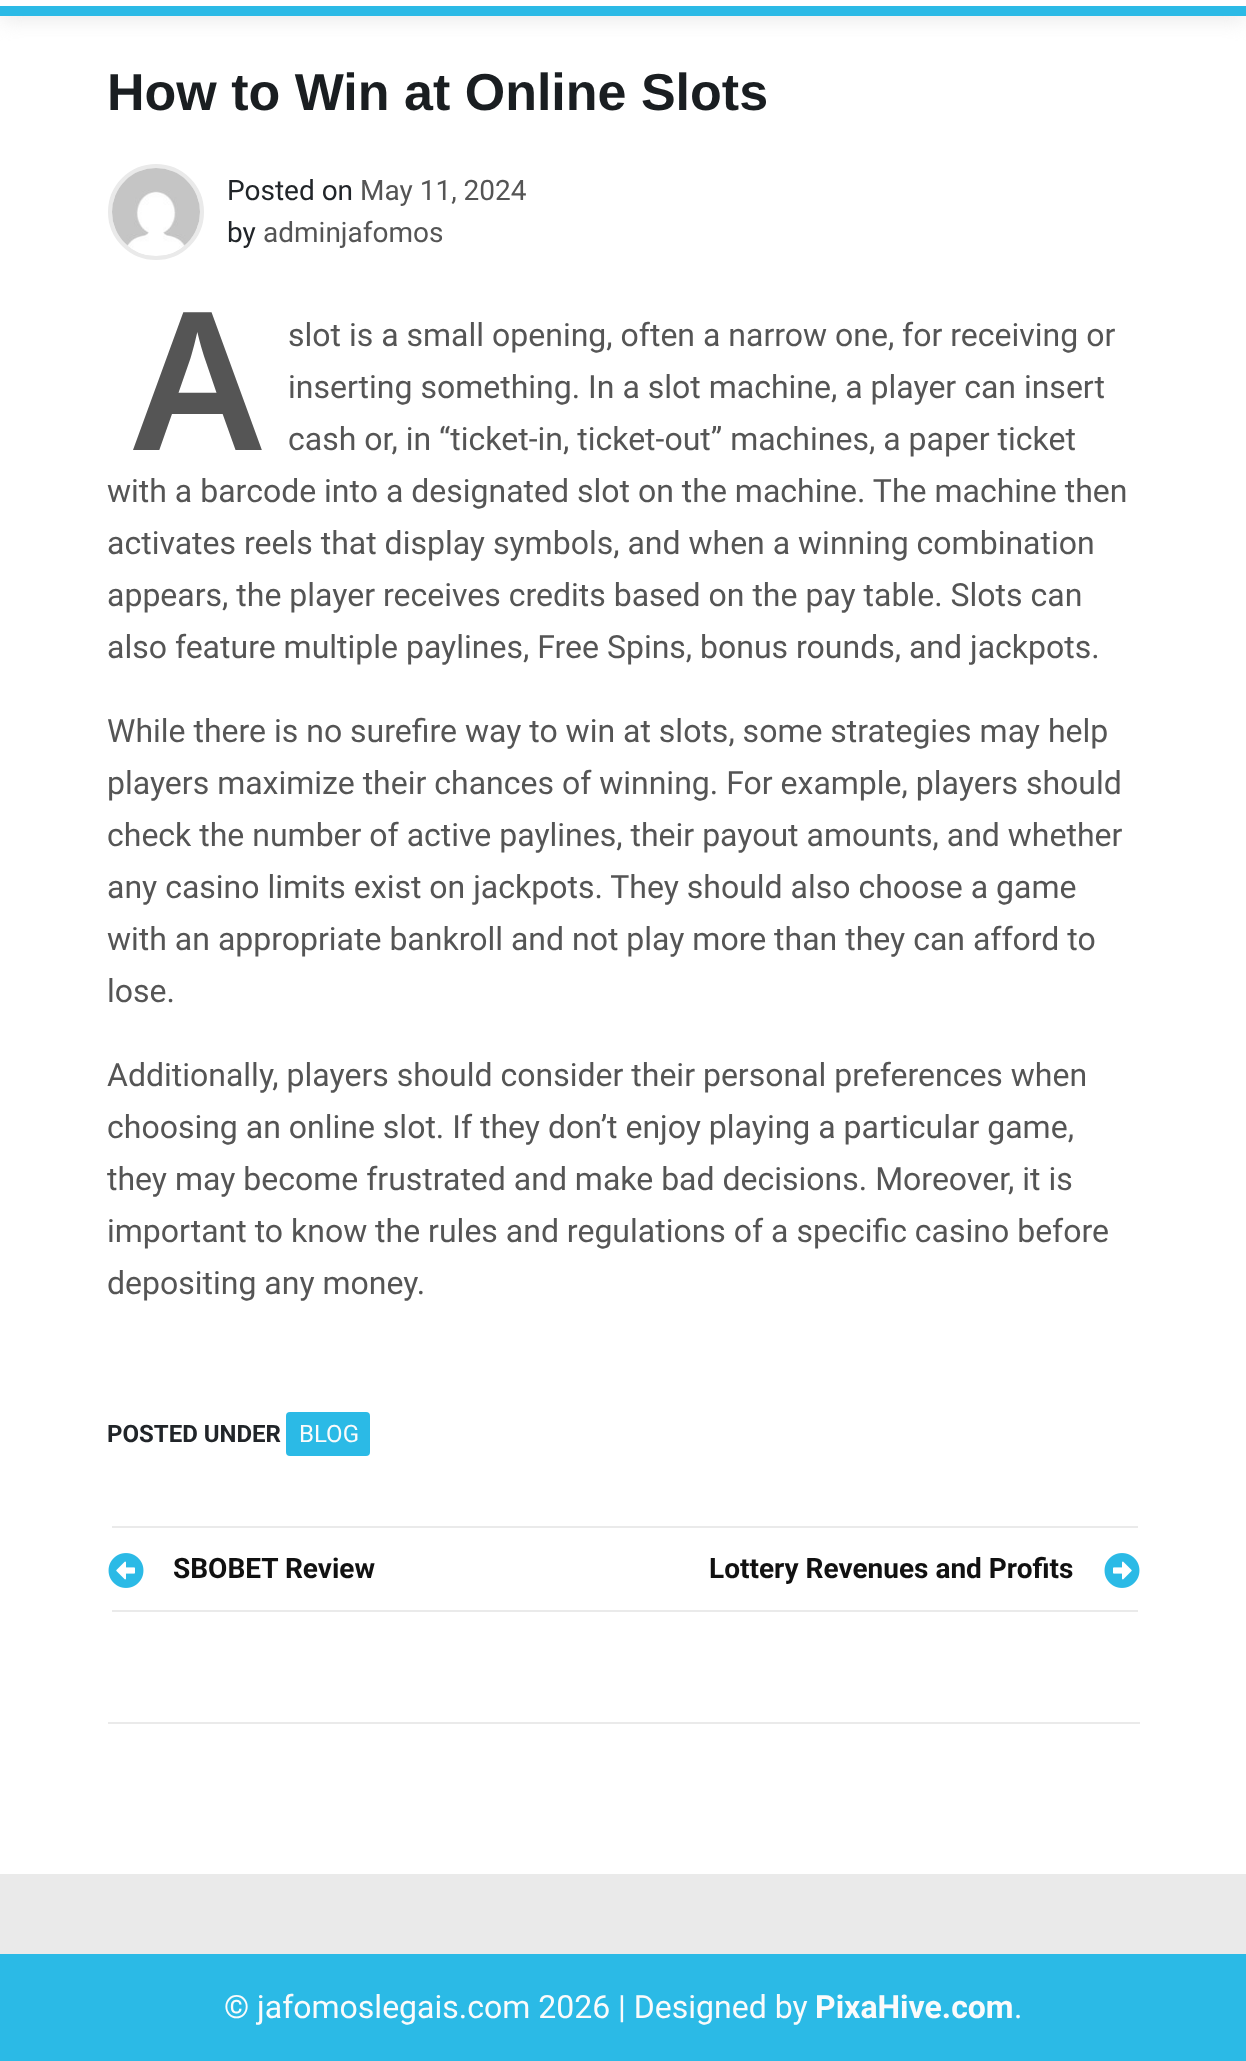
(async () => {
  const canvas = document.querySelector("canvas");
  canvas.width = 1246;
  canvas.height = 2061;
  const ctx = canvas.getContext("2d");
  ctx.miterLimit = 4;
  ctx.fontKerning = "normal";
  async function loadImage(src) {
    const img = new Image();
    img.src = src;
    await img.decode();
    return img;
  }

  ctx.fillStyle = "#ffffff";
  ctx.fillRect(0, 0, 1246, 2061);
  ctx.save();
  ctx.beginPath();
  ctx.rect(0, 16, 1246, 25);
  ctx.clip();
  ctx.fillStyle = "#eaeaea";
  ctx.filter = "blur(10px)";
  ctx.beginPath();
  ctx.rect(0, -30, 1246, 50);
  ctx.fill();
  ctx.filter = "none";
  ctx.restore();
  ctx.fillStyle = "#2bbae6";
  ctx.fillRect(0, 6, 1246, 10);
  ctx.fillStyle = "#eaeaea";
  ctx.fillRect(108, 1722, 1032, 2);
  ctx.beginPath();
  ctx.arc(156, 212, 46, 0, Math.PI * 2);
  ctx.strokeStyle = "#eaeaea";
  ctx.lineWidth = 4;
  ctx.stroke();
  ctx.drawImage(await loadImage("img/1.png"), 112, 168, 88, 87);
  ctx.fillStyle = "#2bbae6";
  ctx.beginPath();
  ctx.roundRect(286, 1412, 84, 44, 4);
  ctx.fill();
  ctx.fillStyle = "#eaeaea";
  ctx.fillRect(112, 1526, 1026, 2);
  ctx.fillRect(112, 1610, 1026, 2);
  ctx.drawImage(await loadImage("img/2.png"), 108, 1553, 36, 35);
  ctx.drawImage(await loadImage("img/3.png"), 1104, 1553, 36, 35);
  ctx.fillRect(0, 1874, 1246, 80);
  ctx.fillStyle = "#2bbae6";
  ctx.fillRect(0, 1954, 1246, 107);
  ctx.font = "bold 52px Liberation Sans";
  ctx.fillStyle = "#1a1e21";
  ctx.fillText("How to Win at Online Slots", 107, 110);
  ctx.font = "28px Roboto";
  ctx.fillStyle = "#212529";
  ctx.fillText("Posted on", 227, 200);
  ctx.fillStyle = "#555555";
  ctx.fillText("May 11, 2024", 360, 200);
  ctx.fillStyle = "#212529";
  ctx.fillText("by", 227, 242);
  ctx.fillStyle = "#555555";
  ctx.fillText("adminjafomos", 263, 242);
  ctx.font = "600 192px Noto Sans";
  ctx.fillText("A", 133, 450);
  ctx.font = "32px Roboto";
  for (const [text, x, y] of [
    ["slot is a small opening, often a narrow one, for receiving or", 288, 346],
    ["inserting something. In a slot machine, a player can insert", 288, 398],
    ["cash or, in “ticket-in, ticket-out” machines, a paper ticket", 288, 450],
    ["with a barcode into a designated slot on the machine. The machine then", 107, 502],
    ["activates reels that display symbols, and when a winning combination", 107, 554],
    ["appears, the player receives credits based on the pay table. Slots can", 107, 606],
    ["also feature multiple paylines, Free Spins, bonus rounds, and jackpots.", 107, 658],
    ["While there is no surefire way to win at slots, some strategies may help", 107, 742],
    ["players maximize their chances of winning. For example, players should", 107, 794],
    ["check the number of active paylines, their payout amounts, and whether", 107, 846],
    ["any casino limits exist on jackpots. They should also choose a game", 107, 898],
    ["with an appropriate bankroll and not play more than they can afford to", 107, 950],
    ["lose.", 107, 1002],
    ["Additionally, players should consider their personal preferences when", 107, 1086],
    ["choosing an online slot. If they don’t enjoy playing a particular game,", 107, 1138],
    ["they may become frustrated and make bad decisions. Moreover, it is", 107, 1190],
    ["important to know the rules and regulations of a specific casino before", 107, 1242],
    ["depositing any money.", 107, 1294],
  ]) {
    ctx.fillText(text, x, y);
  }
  ctx.font = "bold 24px Roboto";
  ctx.fillStyle = "#212529";
  ctx.fillText("POSTED UNDER", 107, 1442);
  ctx.font = "24px Roboto";
  ctx.fillStyle = "#fbfbfb";
  ctx.fillText("BLOG", 299, 1442);
  ctx.font = "bold 28px Roboto";
  ctx.fillStyle = "#111111";
  ctx.fillText("SBOBET Review", 173, 1578);
  ctx.fillText("Lottery Revenues and Profits", 709, 1578);
  ctx.font = "32px Roboto";
  ctx.fillStyle = "#fbfbfb";
  ctx.fillText("© jafomoslegais.com 2026 | Designed by", 224, 2018);
  ctx.font = "bold 32px Roboto";
  ctx.fillText("PixaHive.com", 815, 2018);
  ctx.font = "32px Roboto";
  ctx.fillText(".", 1014, 2018);
})();
